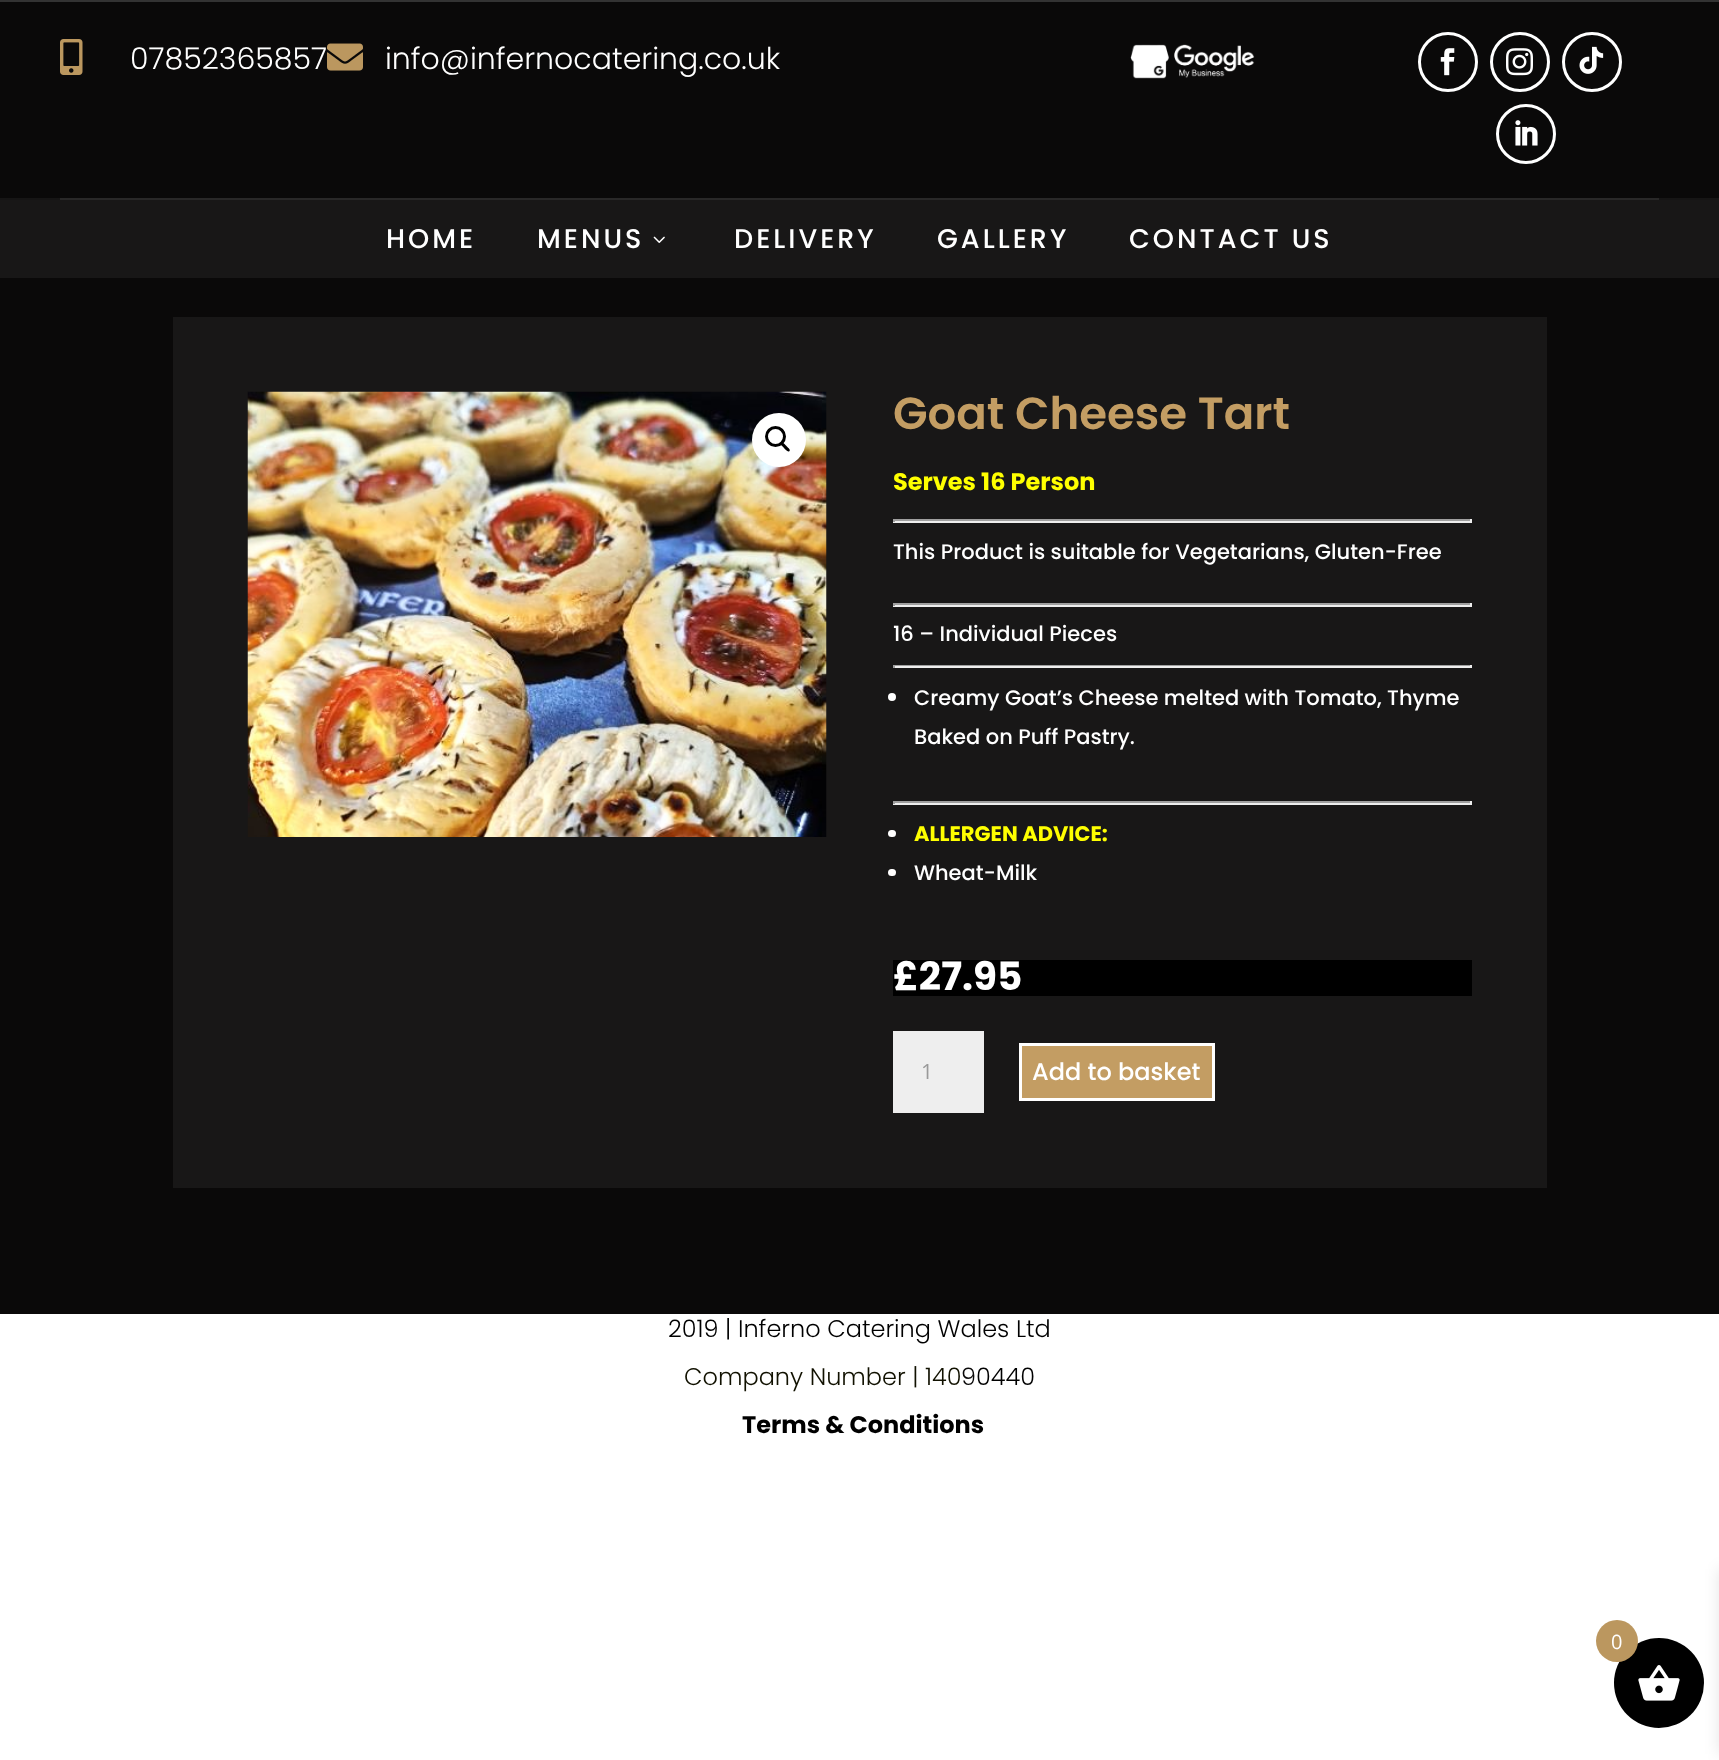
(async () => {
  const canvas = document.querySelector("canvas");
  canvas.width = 1719;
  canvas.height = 1760;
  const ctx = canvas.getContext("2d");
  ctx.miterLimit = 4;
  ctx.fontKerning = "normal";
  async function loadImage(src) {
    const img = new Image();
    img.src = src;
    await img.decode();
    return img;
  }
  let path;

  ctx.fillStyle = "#ffffff";
  ctx.fillRect(0, 0, 1719, 1760);
  for (const [x, y, w, h, color] of [
    [0, 2, 1719, 196, "#0a0909"],
    [0, 0, 1719, 2, "#333333"],
    [0, 198, 1719, 2, "#161515"],
    [60, 198, 1599, 2, "#292828"],
  ]) {
    ctx.fillStyle = color;
    ctx.fillRect(x, y, w, h);
  }
  ctx.drawImage(await loadImage("img/1.png"), 60, 39, 23, 36);
  ctx.drawImage(await loadImage("img/2.png"), 327, 43, 36, 28);
  ctx.drawImage(await loadImage("img/3.png"), 1130, 44, 125, 35);
  ctx.beginPath();
  ctx.arc(1448, 62, 28.5, 0, Math.PI * 2);
  ctx.strokeStyle = "#ffffff";
  ctx.lineWidth = 3;
  ctx.stroke();
  ctx.drawImage(await loadImage("img/4.png"), 1440, 48, 15, 28);
  ctx.beginPath();
  ctx.arc(1520, 62, 28.5, 0, Math.PI * 2);
  ctx.stroke();
  ctx.drawImage(await loadImage("img/5.png"), 1506, 48, 27, 28);
  ctx.beginPath();
  ctx.arc(1592, 62, 28.5, 0, Math.PI * 2);
  ctx.stroke();
  ctx.drawImage(await loadImage("img/6.png"), 1579, 46, 25, 28);
  ctx.beginPath();
  ctx.arc(1526, 134, 28.5, 0, Math.PI * 2);
  ctx.stroke();
  ctx.drawImage(await loadImage("img/7.png"), 1515, 120, 23, 26);
  ctx.fillStyle = "#181717";
  ctx.fillRect(0, 200, 1719, 78);
  ctx.drawImage(await loadImage("img/8.png"), 653, 236, 12, 7);
  ctx.fillStyle = "#0a0909";
  ctx.fillRect(0, 278, 1719, 1036);
  ctx.fillStyle = "#181717";
  ctx.fillRect(173, 317, 1374, 871);
  ctx.drawImage(await loadImage("img/9.png"), 247, 391, 580, 446);
  ctx.fillStyle = "#ffffff";
  ctx.beginPath();
  ctx.arc(779, 440, 27, 0, Math.PI * 2);
  ctx.fill();
  ctx.beginPath();
  ctx.arc(775.5, 436.5, 9, 0, Math.PI * 2);
  ctx.strokeStyle = "#000000";
  ctx.stroke();
  ctx.fillStyle = "#000000";
  path = new Path2D("M781 443C782.5 441 785.5 445 786.5 446C787 447 791 449.5 789.5 451C788 453 785 449 784 448C783.5 447 779.5 444.5 781 443Z");
  ctx.fill(path);
  for (const [x, y, w, h, color] of [
    [893, 519, 579, 2, "#9f9f9f"],
    [1470, 519, 2, 3, "#eeeeee"],
    [893, 521, 579, 2, "#eeeeee"],
    [893, 519, 2, 3, "#9f9f9f"],
    [893, 603, 579, 2, "#9f9f9f"],
    [1470, 603, 2, 3, "#eeeeee"],
    [893, 605, 579, 2, "#eeeeee"],
    [893, 603, 2, 3, "#9f9f9f"],
    [893, 665, 579, 1, "#9f9f9f"],
    [1470, 665, 2, 3, "#eeeeee"],
    [893, 666, 579, 2, "#eeeeee"],
    [893, 665, 2, 3, "#9f9f9f"],
  ]) {
    ctx.fillStyle = color;
    ctx.fillRect(x, y, w, h);
  }
  ctx.fillStyle = "#ffffff";
  ctx.beginPath();
  ctx.arc(892, 697, 4, 0, Math.PI * 2);
  ctx.fill();
  for (const [x, y, w, h, color] of [
    [893, 801, 579, 2, "#9f9f9f"],
    [1470, 801, 2, 3, "#eeeeee"],
    [893, 803, 579, 2, "#eeeeee"],
    [893, 801, 2, 3, "#9f9f9f"],
  ]) {
    ctx.fillStyle = color;
    ctx.fillRect(x, y, w, h);
  }
  ctx.fillStyle = "#ffffff";
  ctx.beginPath();
  ctx.roundRect(888, 830, 8, 7, 3.5);
  ctx.fill();
  ctx.beginPath();
  ctx.roundRect(888, 869, 8, 7, 3.5);
  ctx.fill();
  ctx.fillStyle = "#000000";
  ctx.fillRect(893, 960, 579, 36);
  ctx.fillStyle = "#eeeeee";
  ctx.fillRect(893, 1031, 91, 82);
  ctx.fillStyle = "#c39d63";
  ctx.beginPath();
  ctx.rect(1020.5, 1044.5, 193, 55);
  ctx.fill();
  ctx.strokeStyle = "#ffffff";
  ctx.stroke();
  ctx.fillStyle = "rgba(0, 0, 0, 0.1)";
  ctx.filter = "blur(7.5px)";
  ctx.beginPath();
  ctx.rect(1719, 1569, 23, 185);
  ctx.fill();
  ctx.filter = "none";
  ctx.fillStyle = "#000000";
  ctx.beginPath();
  ctx.arc(1659, 1683, 45, 0, Math.PI * 2);
  ctx.fill();
  ctx.fillStyle = "#bb975f";
  ctx.beginPath();
  ctx.arc(1617, 1641, 21, 0, Math.PI * 2);
  ctx.fill();
  ctx.drawImage(await loadImage("img/10.png"), 1638, 1665, 42, 36);
  ctx.font = "300 30px Poppins";
  ctx.fillStyle = "#ffffff";
  ctx.fillText("07852365857", 130, 69);
  ctx.fillText("info@infernocatering.co.uk", 385, 69);
  ctx.letterSpacing = "3px";
  ctx.font = "500 27px Poppins";
  for (const [text, x, y] of [
    ["HOME", 386, 248],
    ["MENUS", 537, 248],
    ["DELIVERY", 734, 248],
    ["GALLERY", 937, 248],
    ["CONTACT US", 1129, 248],
  ]) {
    ctx.fillText(text, x, y);
  }
  ctx.letterSpacing = "0px";
  ctx.font = "600 45px Poppins";
  ctx.fillStyle = "#c39d63";
  ctx.fillText("Goat Cheese Tart", 893, 429);
  ctx.font = "bold 24px Poppins";
  ctx.fillStyle = "#ffff00";
  ctx.fillText("Serves 16 Person", 893, 490);
  ctx.font = "500 21px Poppins";
  ctx.fillStyle = "#ffffff";
  for (const [text, x, y] of [
    ["This Product is suitable for Vegetarians, Gluten-Free", 893, 559],
    ["16 – Individual Pieces", 893, 641],
    ["Creamy Goat’s Cheese melted with Tomato, Thyme", 914, 705],
    ["Baked on Puff Pastry.", 914, 744],
  ]) {
    ctx.fillText(text, x, y);
  }
  ctx.font = "bold 21px Poppins";
  ctx.fillStyle = "#ffff00";
  ctx.fillText("ALLERGEN ADVICE:", 914, 841);
  ctx.font = "500 21px Poppins";
  ctx.fillStyle = "#ffffff";
  ctx.fillText("Wheat-Milk", 914, 880);
  ctx.font = "bold 39px Poppins";
  ctx.fillText("£27.95", 893, 990);
  ctx.font = "21px Open Sans";
  ctx.fillStyle = "#999999";
  ctx.fillText("1", 921, 1079);
  ctx.font = "500 24px Poppins";
  ctx.fillStyle = "#ffffff";
  ctx.fillText("Add to basket", 1032, 1080);
  ctx.font = "300 24px Poppins";
  ctx.fillStyle = "#000000";
  ctx.fillText("2019 | Inferno Catering Wales Ltd", 668, 1337);
  ctx.fillStyle = "#111100";
  ctx.fillText("Company Number | 140", 684, 1385);
  ctx.fillStyle = "#0a0909";
  ctx.fillText("9", 961, 1385);
  ctx.fillStyle = "#000000";
  ctx.fillText("0440", 976, 1385);
  ctx.font = "bold 24px Poppins";
  ctx.fillText("Terms & Conditions", 742, 1433);
  ctx.font = "20px Open Sans";
  ctx.fillStyle = "#ffffff";
  ctx.fillText("0", 1611, 1649);
})();
